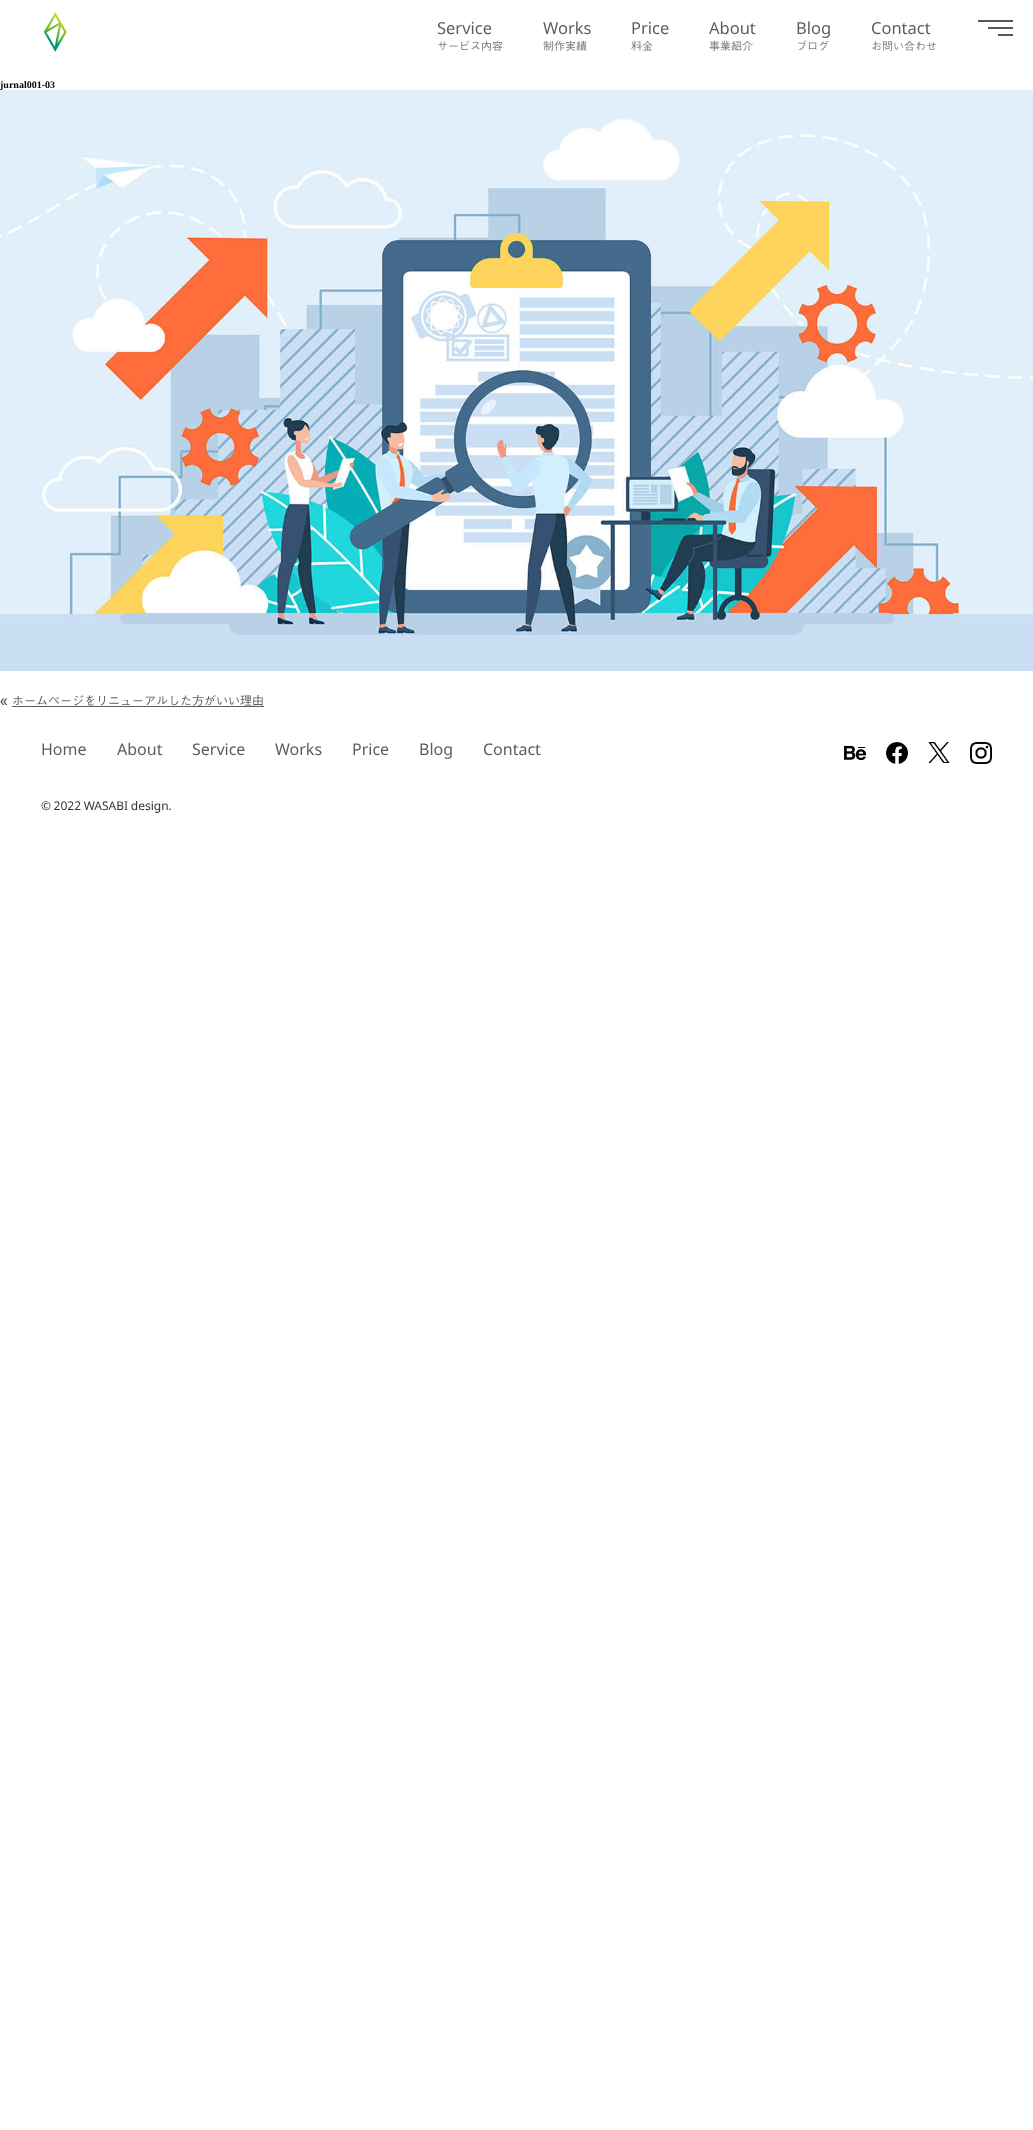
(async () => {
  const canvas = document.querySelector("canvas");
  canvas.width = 1033;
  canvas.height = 2130;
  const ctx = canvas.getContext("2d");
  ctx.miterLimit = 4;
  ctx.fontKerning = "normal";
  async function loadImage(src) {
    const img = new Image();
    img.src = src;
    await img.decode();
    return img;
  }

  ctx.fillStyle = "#ffffff";
  ctx.fillRect(0, 0, 1033, 2130);
  ctx.drawImage(await loadImage("img/1.png"), 43, 12, 24, 40);
  for (const [x, y, w, h, color] of [
    [978, 20, 35, 2, "#575757"],
    [988, 27, 25, 2, "#575757"],
    [998, 34, 15, 2, "#575757"],
    [12, 706, 252, 1, "#5d5d5d"],
  ]) {
    ctx.fillStyle = color;
    ctx.fillRect(x, y, w, h);
  }
  ctx.drawImage(await loadImage("img/3.png"), 844, 745, 22, 16);
  ctx.drawImage(await loadImage("img/4.png"), 886, 742, 22, 22);
  ctx.drawImage(await loadImage("img/5.png"), 928, 742, 22, 21);
  ctx.drawImage(await loadImage("img/6.png"), 970, 742, 22, 22);
  ctx.font = "16.5px Noto Sans";
  ctx.fillText("Service", 437, 34);
  ctx.font = "11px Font";
  ctx.fillStyle = "#7d7d7d";
  ctx.fillText("サービス内容", 437, 50);
  ctx.font = "16.5px Noto Sans";
  ctx.fillStyle = "#5d5d5d";
  ctx.fillText("Works", 543, 34);
  ctx.font = "11px Font";
  ctx.fillStyle = "#7d7d7d";
  ctx.fillText("制作実績", 543, 50);
  ctx.font = "16.5px Noto Sans";
  ctx.fillStyle = "#5d5d5d";
  ctx.fillText("Price", 631, 34);
  ctx.font = "11px Font";
  ctx.fillStyle = "#7d7d7d";
  ctx.fillText("料金", 631, 50);
  ctx.font = "16.5px Noto Sans";
  ctx.fillStyle = "#5d5d5d";
  ctx.fillText("About", 709, 34);
  ctx.font = "11px Font";
  ctx.fillStyle = "#7d7d7d";
  ctx.fillText("事業紹介", 709, 50);
  ctx.font = "16.5px Noto Sans";
  ctx.fillStyle = "#5d5d5d";
  ctx.fillText("Blog", 796, 34);
  ctx.font = "11px Font";
  ctx.fillStyle = "#7d7d7d";
  ctx.fillText("ブログ", 796, 50);
  ctx.font = "16.5px Noto Sans";
  ctx.fillStyle = "#5d5d5d";
  ctx.fillText("Contact", 871, 34);
  ctx.font = "11px Font";
  ctx.fillStyle = "#7d7d7d";
  ctx.fillText("お問い合わせ", 871, 50);
  ctx.font = "bold 10px Liberation Serif";
  ctx.fillStyle = "#000000";
  ctx.fillText("jurnal001-03", 0, 88);
  ctx.drawImage(await loadImage("img/2.png"), 0, 90, 1033, 581);
  ctx.font = "12px Font";
  ctx.fillStyle = "#333333";
  ctx.fillText("«", 0, 705);
  ctx.fillStyle = "#5d5d5d";
  ctx.fillText("ホームページをリニューアルした方がいい理由", 12, 705);
  ctx.font = "16px Noto Sans";
  for (const [text, x, y] of [
    ["Home", 41, 755],
    ["About", 117, 755],
    ["Service", 192, 755],
    ["Works", 275, 755],
    ["Price", 352, 755],
    ["Blog", 419, 755],
    ["Contact", 483, 755],
  ]) {
    ctx.fillText(text, x, y);
  }
  ctx.wordSpacing = "-0.5px";
  ctx.font = "12px Noto Sans";
  ctx.fillStyle = "#333333";
  ctx.fillText("© 2022 WASABI design.", 41, 810);
})();
